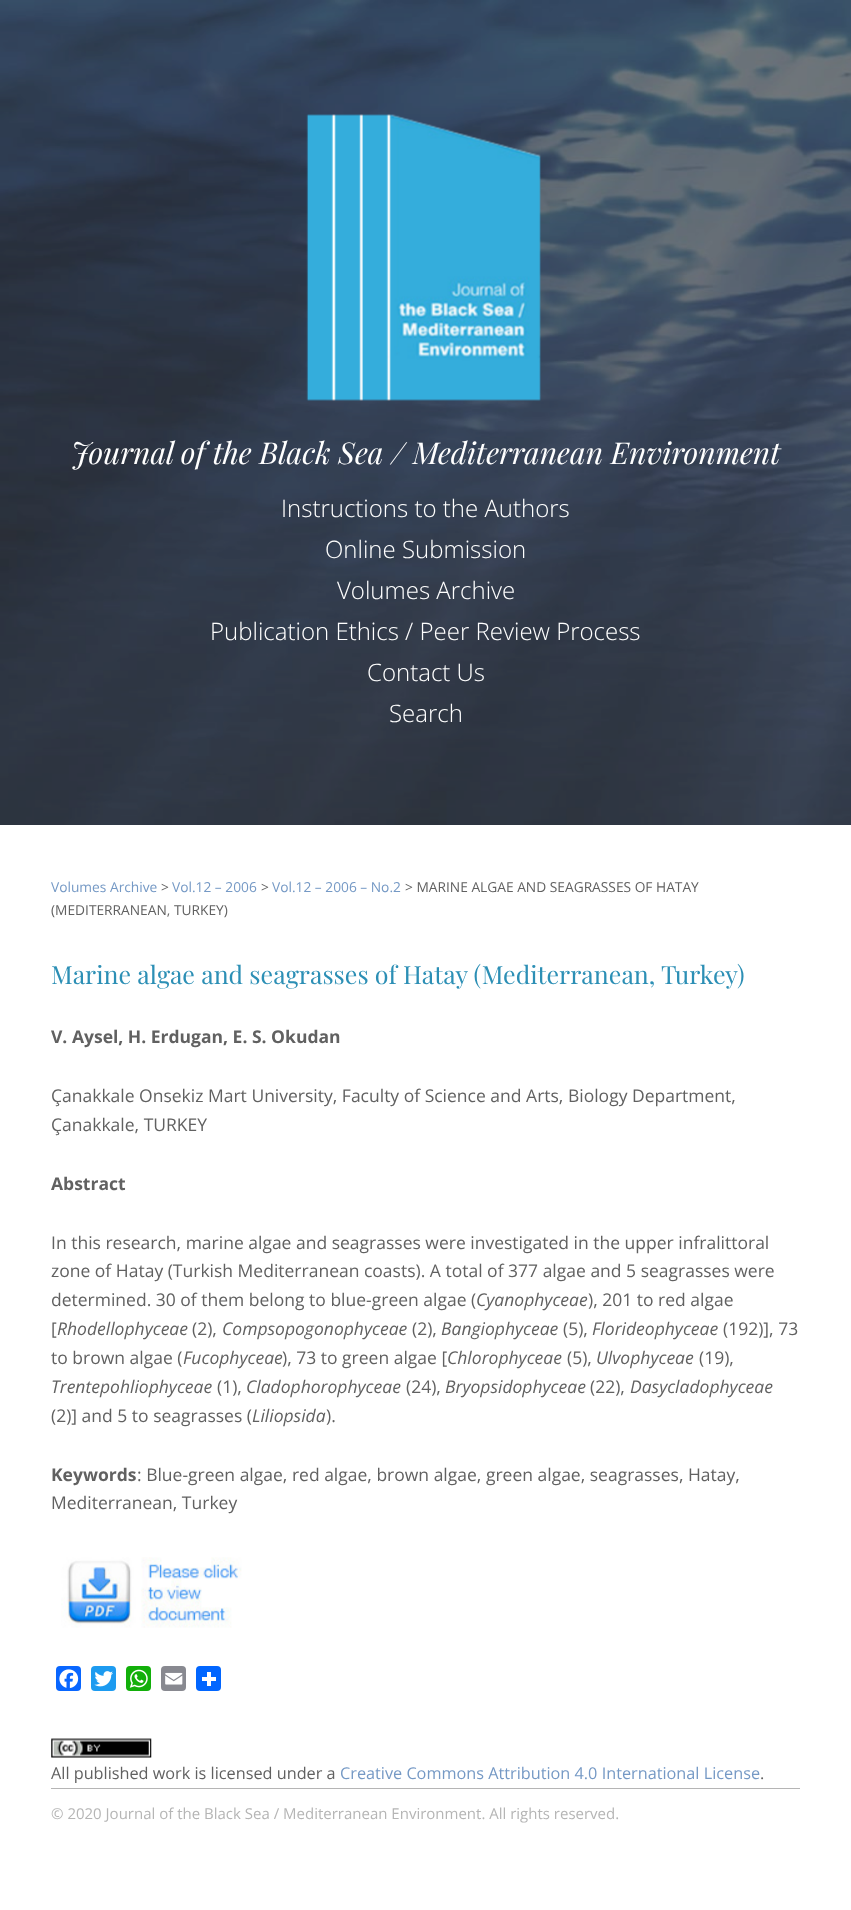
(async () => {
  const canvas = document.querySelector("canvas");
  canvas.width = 851;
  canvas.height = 1910;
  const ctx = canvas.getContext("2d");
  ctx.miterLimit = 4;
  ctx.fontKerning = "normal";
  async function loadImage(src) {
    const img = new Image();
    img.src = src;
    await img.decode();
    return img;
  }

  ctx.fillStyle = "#ffffff";
  ctx.fillRect(0, 0, 851, 1910);
  ctx.drawImage(await loadImage("img/1.png"), 0, 0, 851, 825);
  ctx.drawImage(await loadImage("img/2.png"), 306, 114, 235, 287);
  ctx.drawImage(await loadImage("img/3.png"), 61, 1557, 181, 71);
  ctx.fillStyle = "#0866ff";
  ctx.beginPath();
  ctx.roundRect(56, 1666, 25, 25, 4);
  ctx.fill();
  ctx.drawImage(await loadImage("img/4.png"), 59, 1669, 20, 19);
  ctx.fillStyle = "#1d9bf0";
  ctx.beginPath();
  ctx.roundRect(91, 1666, 25, 25, 4);
  ctx.fill();
  ctx.drawImage(await loadImage("img/5.png"), 94, 1671, 19, 16);
  ctx.fillStyle = "#12af0a";
  ctx.beginPath();
  ctx.roundRect(126, 1666, 25, 25, 4);
  ctx.fill();
  ctx.drawImage(await loadImage("img/6.png"), 129, 1669, 19, 19);
  ctx.fillStyle = "#888990";
  ctx.beginPath();
  ctx.roundRect(161, 1666, 25, 25, 4);
  ctx.fill();
  ctx.drawImage(await loadImage("img/7.png"), 165, 1672, 18, 13);
  ctx.fillStyle = "#0166ff";
  ctx.beginPath();
  ctx.roundRect(196, 1666, 25, 25, 4);
  ctx.fill();
  ctx.fillStyle = "#ffffff";
  ctx.fillRect(207, 1672, 4, 14);
  ctx.fillRect(202, 1677, 14, 4);
  ctx.drawImage(await loadImage("img/8.png"), 51, 1738, 101, 20);
  ctx.fillStyle = "#b5b5b5";
  ctx.fillRect(51, 1788, 749, 1);
  ctx.font = "italic 30px Playfair Display";
  ctx.fillStyle = "#ffffff";
  ctx.fillText("Journal of the Black Sea / Mediterranean Environment", 71, 464);
  ctx.font = "300 24px Open Sans";
  for (const [text, x, y] of [
    ["Instructions to the Authors", 281, 517],
    ["Online Submission", 325, 558],
    ["Volumes Archive", 337, 599],
    ["Publication Ethics / Peer Review Process", 210, 640],
    ["Contact Us", 367, 681],
    ["Search", 389, 722],
  ]) {
    ctx.fillText(text, x, y);
  }
  ctx.font = "13.75px Open Sans";
  ctx.fillStyle = "#7599c5";
  ctx.fillText("Volumes Archive", 51, 892);
  ctx.fillStyle = "#616161";
  ctx.fillText(">", 161, 892);
  ctx.fillStyle = "#7599c5";
  ctx.fillText("Vol.12 – 2006", 172, 892);
  ctx.fillStyle = "#616161";
  ctx.fillText(">", 261, 892);
  ctx.fillStyle = "#7599c5";
  ctx.fillText("Vol.12 – 2006 – No.2", 272, 892);
  ctx.fillStyle = "#616161";
  ctx.fillText("> MARINE ALGAE AND SEAGRASSES OF HATAY", 405, 892);
  ctx.fillText("(MEDITERRANEAN, TURKEY)", 51, 915);
  ctx.font = "25px Playfair Display";
  ctx.fillStyle = "#2c8fb5";
  ctx.fillText("Marine algae and seagrasses of Hatay (Mediterranean, Turkey)", 51, 984);
  ctx.font = "bold 17.5px Open Sans";
  ctx.fillStyle = "#616161";
  ctx.fillText("V. Aysel, H. Erdugan, E. S. Okudan", 51, 1043);
  ctx.font = "17.5px Open Sans";
  ctx.fillText("Çanakkale Onsekiz Mart University, Faculty of Science and Arts, Biology Department,", 51, 1102);
  ctx.fillText("Çanakkale, TURKEY", 51, 1131);
  ctx.font = "bold 17.5px Open Sans";
  ctx.fillText("Abstract", 51, 1190);
  ctx.font = "17.5px Open Sans";
  for (const [text, x, y] of [
    ["In this research, marine algae and seagrasses were investigated in the upper infralittoral", 51, 1249],
    ["zone of Hatay (Turkish Mediterranean coasts). A total of 377 algae and 5 seagrasses were", 51, 1277],
    ["determined. 30 of them belong to blue-green algae (", 51, 1306],
  ]) {
    ctx.fillText(text, x, y);
  }
  ctx.font = "italic 17.5px Open Sans";
  ctx.fillText("Cyanophyceae", 476, 1306);
  ctx.font = "17.5px Open Sans";
  ctx.fillText("), 201 to red algae", 588, 1306);
  ctx.fillText("[", 51, 1335);
  ctx.font = "italic 17.5px Open Sans";
  ctx.fillText("Rhodellophyceae", 57, 1335);
  ctx.font = "17.5px Open Sans";
  ctx.fillText("(2),", 192, 1335);
  ctx.font = "italic 17.5px Open Sans";
  ctx.fillText("Compsopogonophyceae", 222, 1335);
  ctx.font = "17.5px Open Sans";
  ctx.fillText("(2),", 412, 1335);
  ctx.font = "italic 17.5px Open Sans";
  ctx.fillText("Bangiophyceae", 441, 1335);
  ctx.font = "17.5px Open Sans";
  ctx.fillText("(5),", 563, 1335);
  ctx.font = "italic 17.5px Open Sans";
  ctx.fillText("Florideophyceae", 592, 1335);
  ctx.font = "17.5px Open Sans";
  ctx.fillText("(192)], 73", 723, 1335);
  ctx.fillText("to brown algae (", 51, 1364);
  ctx.font = "italic 17.5px Open Sans";
  ctx.fillText("Fucophyceae", 183, 1364);
  ctx.font = "17.5px Open Sans";
  ctx.fillText("), 73 to green algae [", 282, 1364);
  ctx.font = "italic 17.5px Open Sans";
  ctx.fillText("Chlorophyceae", 447, 1364);
  ctx.font = "17.5px Open Sans";
  ctx.fillText("(5),", 567, 1364);
  ctx.font = "italic 17.5px Open Sans";
  ctx.fillText("Ulvophyceae", 596, 1364);
  ctx.font = "17.5px Open Sans";
  ctx.fillText("(19),", 699, 1364);
  ctx.font = "italic 17.5px Open Sans";
  ctx.fillText("Trentepohliophyceae", 51, 1393);
  ctx.font = "17.5px Open Sans";
  ctx.fillText("(1),", 217, 1393);
  ctx.font = "italic 17.5px Open Sans";
  ctx.fillText("Cladophorophyceae", 246, 1393);
  ctx.font = "17.5px Open Sans";
  ctx.fillText("(24),", 406, 1393);
  ctx.font = "italic 17.5px Open Sans";
  ctx.fillText("Bryopsidophyceae", 445, 1393);
  ctx.font = "17.5px Open Sans";
  ctx.fillText("(22),", 590, 1393);
  ctx.font = "italic 17.5px Open Sans";
  ctx.fillText("Dasycladophyceae", 630, 1393);
  ctx.font = "17.5px Open Sans";
  ctx.fillText("(2)] and 5 to seagrasses (", 51, 1422);
  ctx.font = "italic 17.5px Open Sans";
  ctx.fillText("Liliopsida", 252, 1422);
  ctx.font = "17.5px Open Sans";
  ctx.fillText(").", 326, 1422);
  ctx.font = "bold 17.5px Open Sans";
  ctx.fillText("Keywords", 51, 1481);
  ctx.font = "17.5px Open Sans";
  ctx.fillText(": Blue-green algae, red algae, brown algae, green algae, seagrasses, Hatay,", 137, 1481);
  ctx.fillText("Mediterranean, Turkey", 51, 1509);
  ctx.font = "16.25px Open Sans";
  ctx.fillText("All published work is licensed under a", 51, 1779);
  ctx.fillStyle = "#7599c5";
  ctx.fillText("Creative Commons Attribution 4.0 International License", 340, 1779);
  ctx.fillStyle = "#616161";
  ctx.fillText(".", 760, 1779);
  ctx.font = "15px Open Sans";
  ctx.fillStyle = "#b5b5b5";
  ctx.fillText("© 2020 Journal of the Black Sea / Mediterranean Environment. All rights reserved.", 51, 1819);
})();
